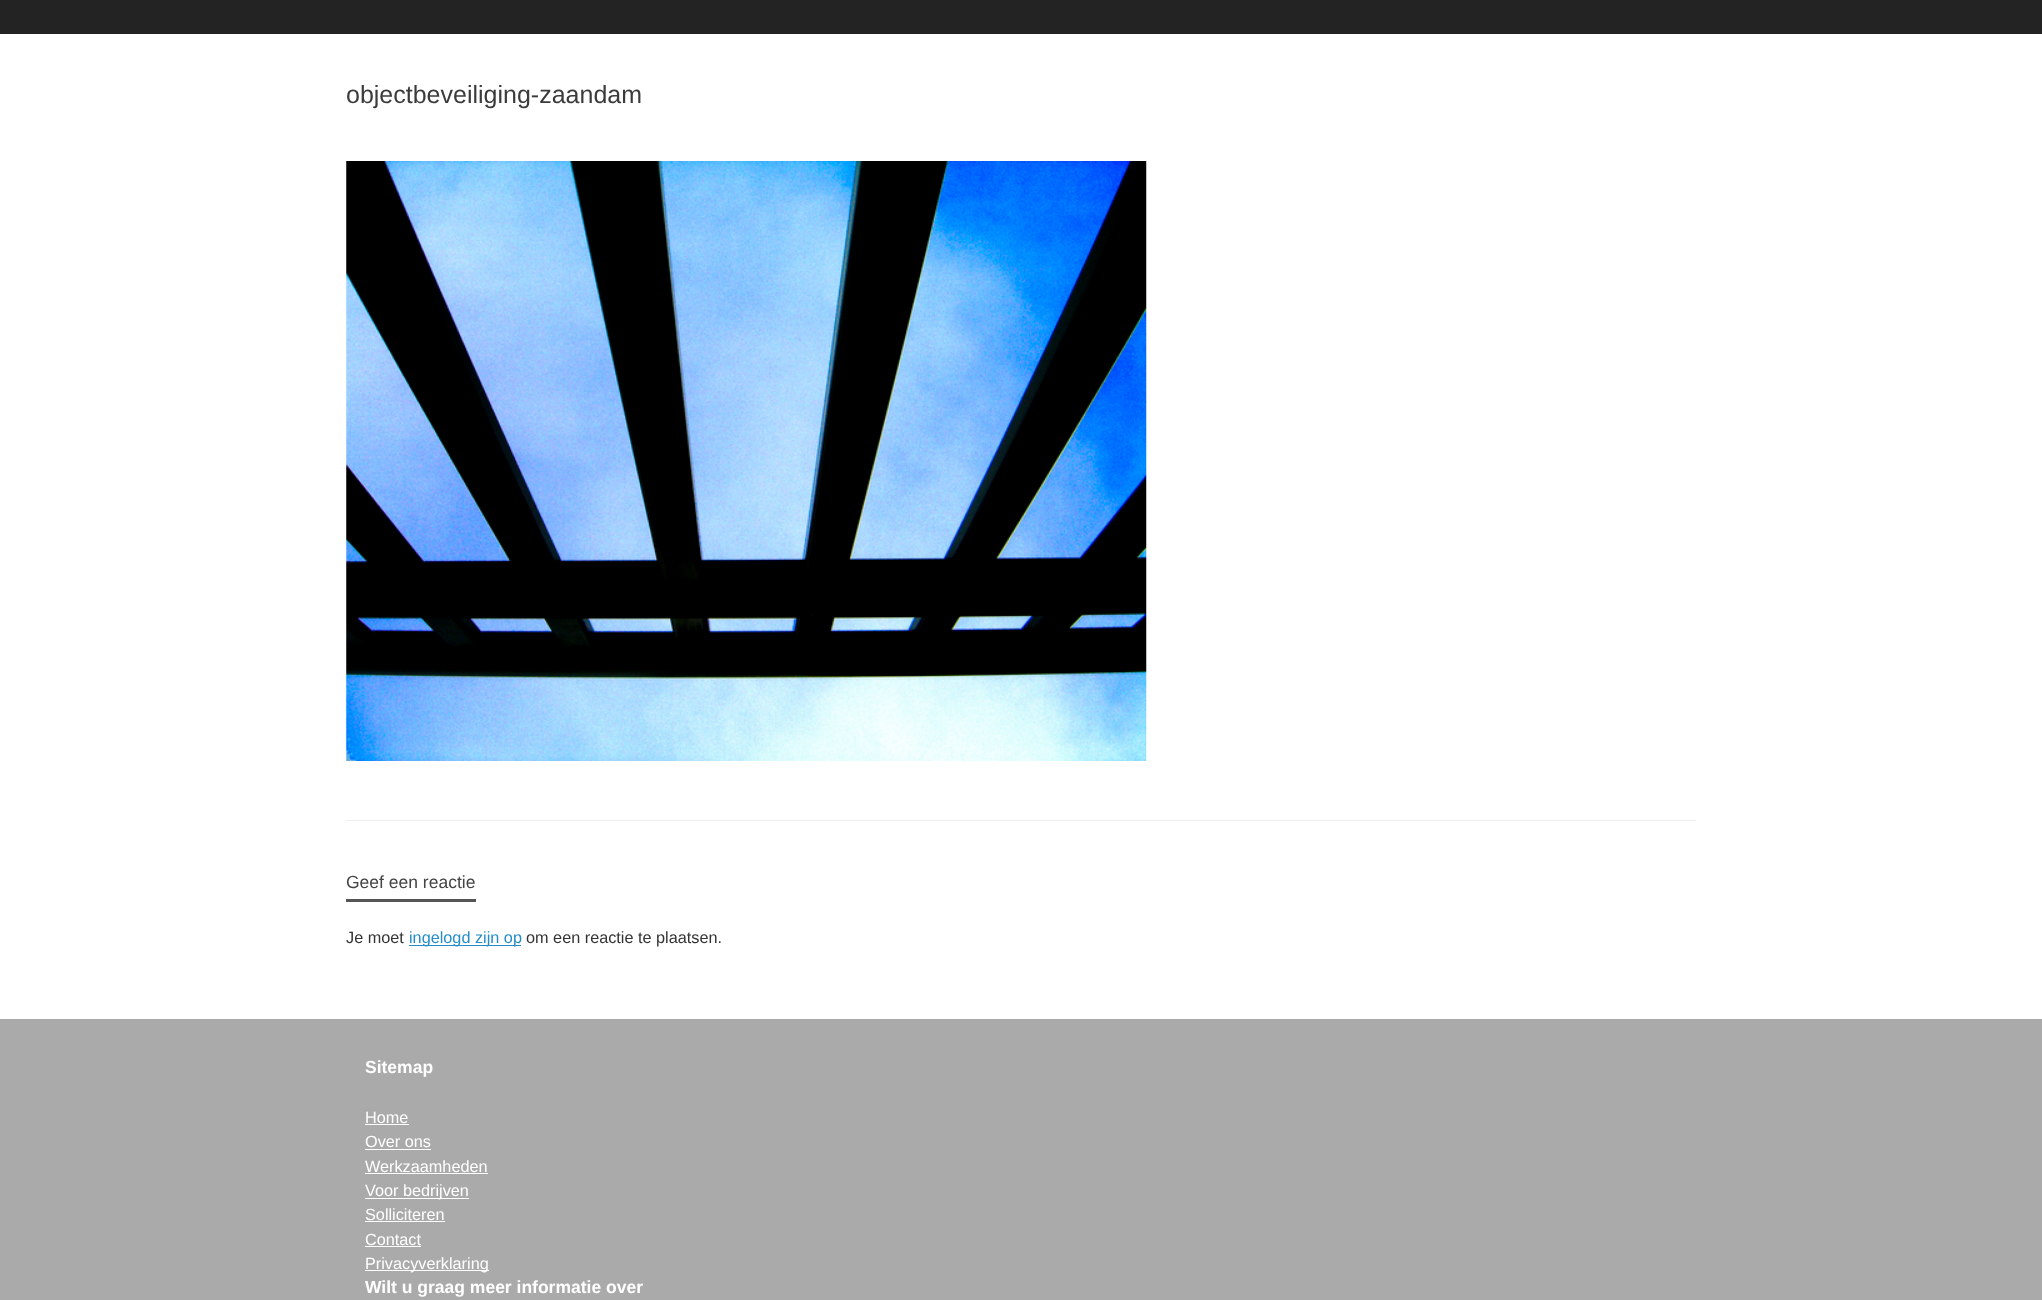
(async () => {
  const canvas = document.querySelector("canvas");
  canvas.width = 2042;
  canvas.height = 1300;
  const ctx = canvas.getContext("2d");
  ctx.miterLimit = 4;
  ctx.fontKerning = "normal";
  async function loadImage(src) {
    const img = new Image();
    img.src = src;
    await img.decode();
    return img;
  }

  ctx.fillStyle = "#aaaaaa";
  ctx.fillRect(0, 0, 2042, 1300);
  for (const [x, y, w, h, color] of [
    [0, 0, 2042, 34, "#232323"],
    [0, 34, 2042, 985, "#ffffff"],
    [346, 820, 1350, 1, "#eeeeee"],
  ]) {
    ctx.fillStyle = color;
    ctx.fillRect(x, y, w, h);
  }
  ctx.drawImage(await loadImage("img/1.png"), 346, 161, 801, 600);
  for (const [x, y, w, h, color] of [
    [346, 899, 130, 3, "#555555"],
    [409, 945, 112, 1, "#248cc8"],
    [365, 1124, 44, 1, "#ffffff"],
    [365, 1149, 66, 1, "#ffffff"],
    [365, 1173, 123, 1, "#ffffff"],
    [365, 1198, 104, 1, "#ffffff"],
    [365, 1221, 80, 1, "#ffffff"],
    [365, 1246, 56, 1, "#ffffff"],
    [365, 1270, 124, 1, "#ffffff"],
  ]) {
    ctx.fillStyle = color;
    ctx.fillRect(x, y, w, h);
  }
  ctx.font = "25px Liberation Sans";
  ctx.fillStyle = "#3b3b3b";
  ctx.fillText("objectbeveiliging-zaandam", 346, 103);
  ctx.font = "17.5px Liberation Sans";
  ctx.fillStyle = "#444444";
  ctx.fillText("Geef een reactie", 346, 888);
  ctx.font = "16.25px Liberation Sans";
  ctx.fillStyle = "#333333";
  ctx.fillText("Je moet", 346, 943);
  ctx.fillStyle = "#248cc8";
  ctx.fillText("ingelogd zijn op", 409, 943);
  ctx.fillStyle = "#333333";
  ctx.fillText("om een reactie te plaatsen.", 526, 943);
  ctx.font = "bold 17.5px Liberation Sans";
  ctx.fillStyle = "#ffffff";
  ctx.fillText("Sitemap", 365, 1073);
  ctx.font = "16.25px Liberation Sans";
  for (const [text, x, y] of [
    ["Home", 365, 1123],
    ["Over ons", 365, 1147],
    ["Werkzaamheden", 365, 1172],
    ["Voor bedrijven", 365, 1196],
    ["Solliciteren", 365, 1220],
    ["Contact", 365, 1245],
    ["Privacyverklaring", 365, 1269],
  ]) {
    ctx.fillText(text, x, y);
  }
  ctx.font = "bold 17.5px Liberation Sans";
  ctx.fillText("Wilt u graag meer informatie over", 365, 1293);
})();
